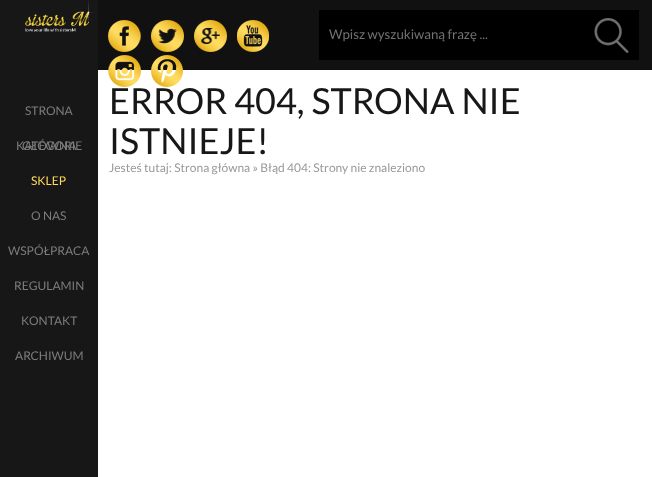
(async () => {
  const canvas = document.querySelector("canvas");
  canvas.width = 652;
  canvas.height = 477;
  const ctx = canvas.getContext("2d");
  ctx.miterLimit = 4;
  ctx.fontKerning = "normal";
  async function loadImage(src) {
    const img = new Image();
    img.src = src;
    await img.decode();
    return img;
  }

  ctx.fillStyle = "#ffffff";
  ctx.fillRect(0, 0, 652, 477);
  ctx.fillStyle = "#171717";
  ctx.fillRect(0, 0, 98, 477);
  ctx.drawImage(await loadImage("img/1.png"), 25, 0, 70, 32);
  ctx.fillStyle = "#111111";
  ctx.fillRect(98, 0, 554, 70);
  ctx.drawImage(await loadImage("img/2.png"), 108, 20, 33, 32);
  ctx.drawImage(await loadImage("img/3.png"), 151, 20, 33, 32);
  ctx.drawImage(await loadImage("img/4.png"), 194, 20, 33, 32);
  ctx.drawImage(await loadImage("img/5.png"), 237, 20, 32, 32);
  ctx.drawImage(await loadImage("img/6.png"), 108, 55, 33, 32);
  ctx.drawImage(await loadImage("img/7.png"), 151, 55, 32, 32);
  ctx.fillStyle = "#000000";
  ctx.fillRect(319, 10, 320, 50);
  ctx.drawImage(await loadImage("img/8.png"), 594, 18, 35, 35);
  ctx.font = "12px Lato";
  ctx.fillStyle = "#7d7d7d";
  for (const [text, x, y] of [
    ["STRONA", 25, 115],
    ["GŁÓWNA", 22, 150],
    ["KATEGORIE", 16, 150],
  ]) {
    ctx.fillText(text, x, y);
  }
  ctx.fillStyle = "#feda5e";
  ctx.fillText("SKLEP", 31, 185);
  ctx.fillStyle = "#7d7d7d";
  for (const [text, x, y] of [
    ["O NAS", 31, 220],
    ["WSPÓŁPRACA", 8, 255],
    ["REGULAMIN", 14, 290],
    ["KONTAKT", 21, 325],
    ["ARCHIWUM", 15, 360],
  ]) {
    ctx.fillText(text, x, y);
  }
  ctx.font = "13.25px Lato";
  ctx.fillStyle = "#727273";
  ctx.fillText("Wpisz wyszukiwaną frazę ...", 329, 39);
  ctx.font = "36px Lato";
  ctx.fillStyle = "#171717";
  ctx.fillText("ERROR 404, STRONA NIE", 109, 114);
  ctx.fillText("ISTNIEJE!", 109, 154);
  ctx.font = "12px Lato";
  ctx.fillStyle = "#999999";
  ctx.fillText("Jesteś tutaj: Strona główna » Błąd 404: Strony nie znaleziono", 109, 172);
})();
